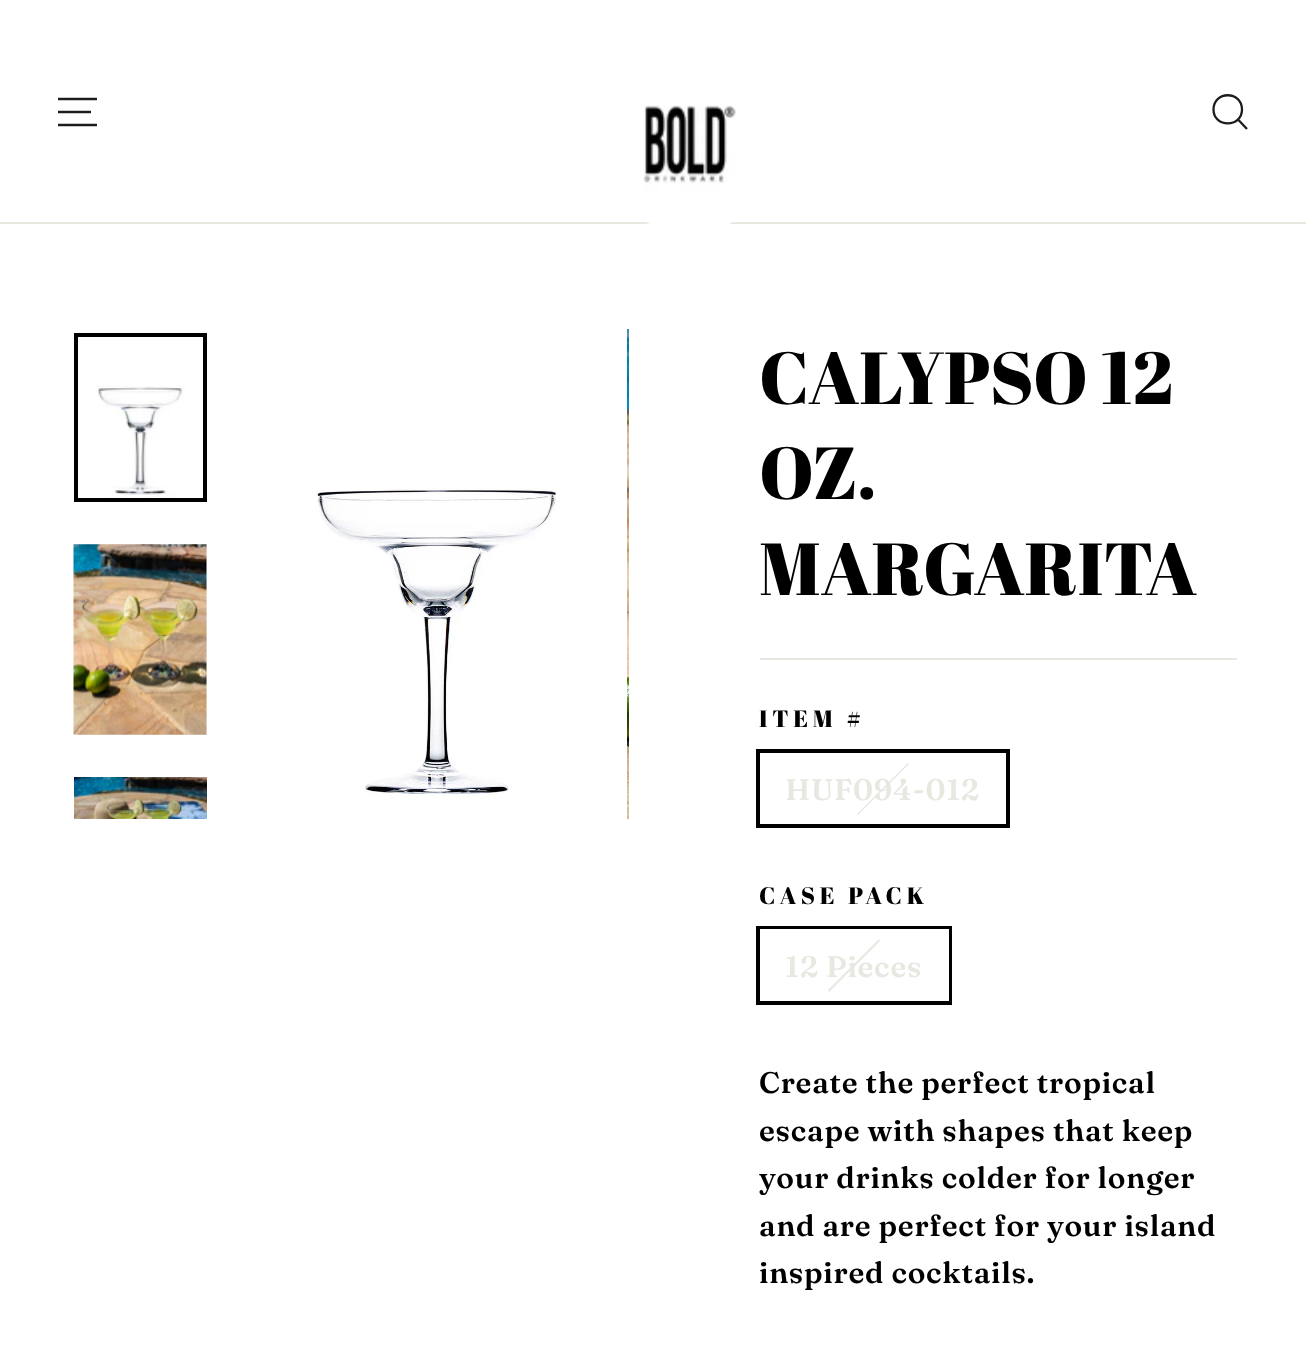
(async () => {
  const canvas = document.querySelector("canvas");
  canvas.width = 1306;
  canvas.height = 1367;
  const ctx = canvas.getContext("2d");
  ctx.miterLimit = 4;
  ctx.fontKerning = "normal";
  async function loadImage(src) {
    const img = new Image();
    img.src = src;
    await img.decode();
    return img;
  }
  let path;

  ctx.fillStyle = "#ffffff";
  ctx.fillRect(0, 0, 1306, 1367);
  ctx.fillStyle = "#e8e8e1";
  ctx.fillRect(0, 222, 1306, 2);
  path = new Path2D("M58 99H97M58 112H91M58 125H97");
  ctx.strokeStyle = "#1c1d1d";
  ctx.lineWidth = 2.3;
  ctx.stroke(path);
  ctx.fillStyle = "rgba(255, 255, 255, 0.24)";
  ctx.beginPath();
  ctx.roundRect(602, 58, 175, 175, 86);
  ctx.fill();
  ctx.drawImage(await loadImage("img/1.png"), 643, 105, 93, 119);
  path = new Path2D("M1242 109.5C1242 128 1213.5 128 1213.5 109.5C1213.5 90.5 1242 90.5 1242 109.5ZM1247 129L1238 119.5");
  ctx.stroke(path);
  ctx.drawImage(await loadImage("img/2.png"), 78, 337, 125, 161);
  ctx.strokeStyle = "#000000";
  ctx.lineWidth = 4;
  ctx.strokeRect(76, 335, 129, 165);
  ctx.fillStyle = "#f4f4f4";
  ctx.fillRect(74, 544, 133, 191);
  ctx.drawImage(await loadImage("img/3.png"), 73, 544, 134, 191);
  ctx.drawImage(await loadImage("img/4.png"), 74, 777, 133, 42);
  ctx.drawImage(await loadImage("img/5.png"), 245, 329, 382, 490);
  ctx.drawImage(await loadImage("img/6.png"), 627, 329, 2, 490);
  ctx.fillStyle = "#e8e8e1";
  ctx.fillRect(760, 658, 477, 2);
  ctx.strokeRect(758, 751, 250, 75);
  path = new Path2D("M908 763L909 764L858 815L857 814Z");
  ctx.fill(path);
  ctx.strokeRect(758, 928, 192, 75);
  ctx.fillStyle = "#ffffff";
  ctx.fillRect(760, 929, 189, 72);
  ctx.fillStyle = "#e8e8e1";
  path = new Path2D("M879 939L880 941L829 992L828 990Z");
  ctx.fill(path);
  ctx.font = "73.5px Abril Fatface";
  ctx.fillStyle = "#000000";
  for (const [text, x, y] of [
    ["CALYPSO 12", 759, 404],
    ["OZ.", 759, 499],
    ["MARGARITA", 759, 595],
  ]) {
    ctx.fillText(text, x, y);
  }
  ctx.letterSpacing = "4.75px";
  ctx.font = "23.75px Abril Fatface";
  ctx.fillText("ITEM #", 759, 727);
  ctx.letterSpacing = "0.75px";
  ctx.font = "600 29.75px Fraunces";
  ctx.fillStyle = "#e8e8e1";
  ctx.fillText("HUF094-012", 785, 800);
  ctx.letterSpacing = "4.75px";
  ctx.font = "23.75px Abril Fatface";
  ctx.fillStyle = "#000000";
  ctx.fillText("CASE PACK", 759, 904);
  ctx.letterSpacing = "0.75px";
  ctx.font = "600 29.75px Fraunces";
  ctx.fillStyle = "#e8e8e1";
  ctx.fillText("12 Pieces", 785, 977);
  ctx.fillStyle = "#000000";
  for (const [text, x, y] of [
    ["Create the perfect tropical", 759, 1093],
    ["escape with shapes that keep", 759, 1141],
    ["your drinks colder for longer", 759, 1188],
    ["and are perfect for your island", 759, 1236],
    ["inspired cocktails.", 759, 1283],
  ]) {
    ctx.fillText(text, x, y);
  }
})();
